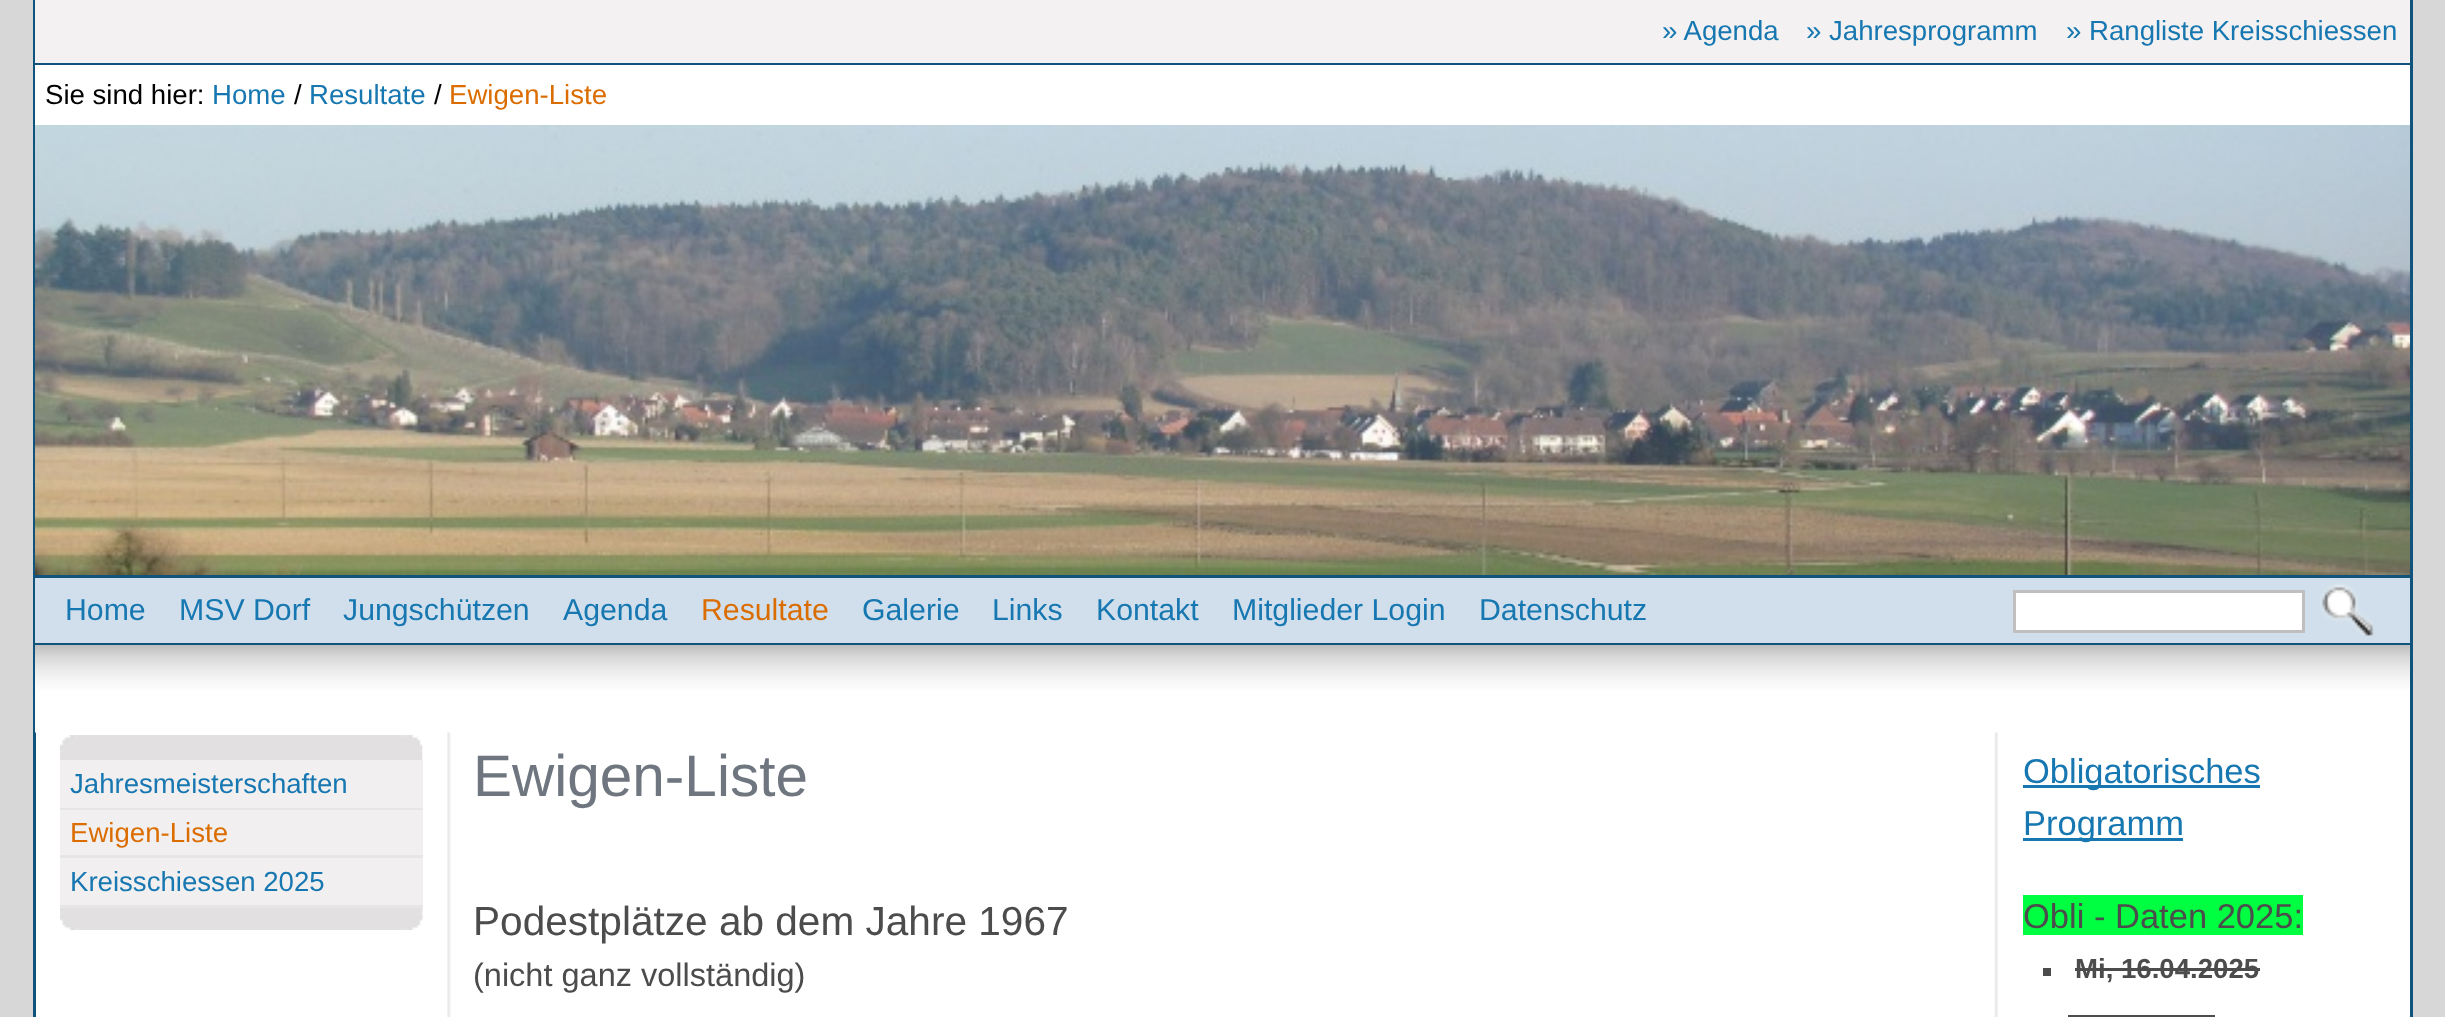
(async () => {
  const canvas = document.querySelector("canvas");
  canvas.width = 2445;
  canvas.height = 1017;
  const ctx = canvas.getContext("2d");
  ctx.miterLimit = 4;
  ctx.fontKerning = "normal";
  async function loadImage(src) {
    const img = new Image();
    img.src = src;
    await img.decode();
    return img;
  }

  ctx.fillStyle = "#d8d7d7";
  ctx.fillRect(0, 0, 2445, 1017);
  ctx.fillStyle = "#ffffff";
  ctx.fillRect(36, 732, 2374, 285);
  ctx.drawImage(await loadImage("img/1.png"), 447, 732, 1551, 285);
  for (const [x, y, w, h, color] of [
    [2410, 0, 3, 1017, "#10537c"],
    [33, 0, 3, 1017, "#10537c"],
    [35, 0, 2375, 63, "#f3f1f1"],
    [35, 63, 2375, 2, "#10537c"],
    [35, 65, 2375, 60, "#ffffff"],
    [35, 575, 2375, 3, "#10537c"],
  ]) {
    ctx.fillStyle = color;
    ctx.fillRect(x, y, w, h);
  }
  ctx.drawImage(await loadImage("img/2.png"), 35, 125, 2375, 450);
  ctx.fillStyle = "#d0dfeb";
  ctx.fillRect(35, 578, 2375, 65);
  ctx.fillStyle = "#10537c";
  ctx.fillRect(35, 643, 2375, 2);
  ctx.fillStyle = "#ffffff";
  ctx.beginPath();
  ctx.rect(2014.5, 591.5, 289, 40);
  ctx.fill();
  ctx.strokeStyle = "#c0bebe";
  ctx.lineWidth = 3;
  ctx.stroke();
  ctx.drawImage(await loadImage("img/3.png"), 2320, 583, 54, 53);
  ctx.drawImage(await loadImage("img/4.png"), 35, 645, 2375, 88);
  ctx.drawImage(await loadImage("img/5.png"), 60, 908, 363, 22);
  ctx.drawImage(await loadImage("img/6.png"), 60, 735, 363, 25);
  for (const [x, y, w, h, color] of [
    [60, 760, 363, 48, "#f1efef"],
    [60, 808, 363, 2, "#e6e6e6"],
    [60, 810, 363, 45, "#f1efef"],
    [60, 855, 363, 3, "#e6e6e6"],
    [60, 858, 363, 47, "#f1efef"],
    [60, 905, 363, 3, "#e6e6e6"],
    [2023, 785, 237, 3, "#1777b1"],
    [2023, 838, 160, 3, "#1777b1"],
    [2023, 895, 280, 40, "#00ff40"],
    [2043, 968, 8, 8, "#4c4c4c"],
    [2075, 968, 185, 3, "#4c4c4c"],
    [2068, 1015, 147, 2, "#4c4c4c"],
  ]) {
    ctx.fillStyle = color;
    ctx.fillRect(x, y, w, h);
  }
  ctx.font = "27.6px Liberation Sans";
  ctx.fillStyle = "#1777b1";
  for (const [text, x, y] of [
    ["» Agenda", 1662, 40],
    ["» Jahresprogramm", 1806, 40],
    ["» Rangliste Kreisschiessen", 2066, 40],
  ]) {
    ctx.fillText(text, x, y);
  }
  ctx.fillStyle = "#000000";
  ctx.fillText("Sie sind hier:", 45, 104);
  ctx.fillStyle = "#1777b1";
  ctx.fillText("Home", 212, 104);
  ctx.fillStyle = "#000000";
  ctx.fillText("/", 294, 104);
  ctx.fillStyle = "#1777b1";
  ctx.fillText("Resultate", 309, 104);
  ctx.fillStyle = "#000000";
  ctx.fillText("/", 434, 104);
  ctx.fillStyle = "#db6d00";
  ctx.fillText("Ewigen-Liste", 449, 104);
  ctx.font = "30.25px Liberation Sans";
  ctx.fillStyle = "#1777b1";
  for (const [text, x, y] of [
    ["Home", 65, 620],
    ["MSV Dorf", 179, 620],
    ["Jungschützen", 343, 620],
    ["Agenda", 563, 620],
  ]) {
    ctx.fillText(text, x, y);
  }
  ctx.fillStyle = "#db6d00";
  ctx.fillText("Resultate", 701, 620);
  ctx.fillStyle = "#1777b1";
  for (const [text, x, y] of [
    ["Galerie", 862, 620],
    ["Links", 992, 620],
    ["Kontakt", 1096, 620],
    ["Mitglieder Login", 1232, 620],
    ["Datenschutz", 1479, 620],
  ]) {
    ctx.fillText(text, x, y);
  }
  ctx.font = "27.6px Liberation Sans";
  ctx.fillText("Jahresmeisterschaften", 70, 793);
  ctx.fillStyle = "#db6d00";
  ctx.fillText("Ewigen-Liste", 70, 842);
  ctx.fillStyle = "#1777b1";
  ctx.fillText("Kreisschiessen 2025", 70, 891);
  ctx.font = "58.5px Liberation Sans";
  ctx.fillStyle = "#6f767f";
  ctx.fillText("Ewigen-Liste", 473, 796);
  ctx.font = "40.6px Liberation Sans";
  ctx.fillStyle = "#4c4c4c";
  ctx.fillText("Podestplätze ab dem Jahre 1967", 473, 935);
  ctx.font = "32.5px Liberation Sans";
  ctx.fillText("(nicht ganz vollständig)", 473, 986);
  ctx.font = "34.5px Liberation Sans";
  ctx.fillStyle = "#1777b1";
  ctx.fillText("Obligatorisches", 2023, 783);
  ctx.fillText("Programm", 2023, 835);
  ctx.fillStyle = "#4c4c4c";
  ctx.fillText("Obli - Daten 2025:", 2023, 928);
  ctx.font = "bold 27.6px Liberation Sans";
  ctx.fillText("Mi, 16.04.2025", 2075, 978);
})();
